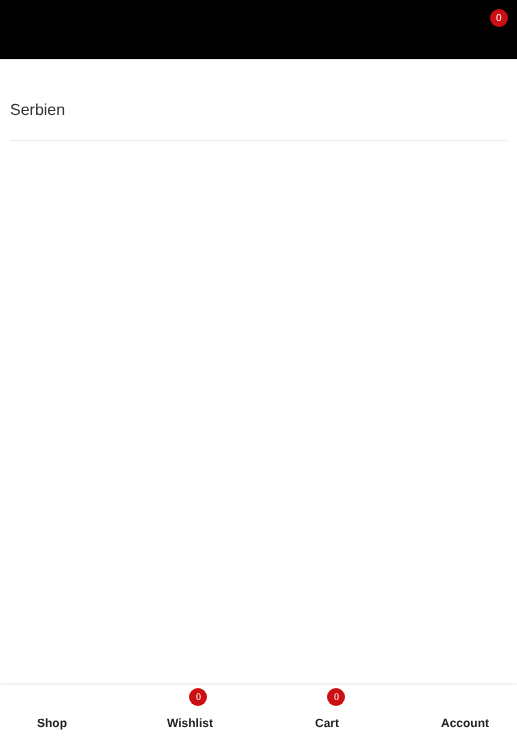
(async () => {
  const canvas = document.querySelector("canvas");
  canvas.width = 517;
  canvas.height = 742;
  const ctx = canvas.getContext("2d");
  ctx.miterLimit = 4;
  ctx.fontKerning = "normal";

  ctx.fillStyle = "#ffffff";
  ctx.fillRect(0, 0, 517, 742);
  ctx.fillStyle = "#000000";
  ctx.fillRect(0, 0, 517, 59);
  ctx.fillStyle = "#e9e9e9";
  ctx.fillRect(0, 59, 517, 1);
  ctx.fillStyle = "#cc0f13";
  ctx.beginPath();
  ctx.arc(499, 18, 9, 0, Math.PI * 2);
  ctx.fill();
  ctx.fillStyle = "#e9e9e9";
  ctx.fillRect(10, 140, 497, 1);
  ctx.save();
  ctx.beginPath();
  ctx.rect(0, 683, 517, 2);
  ctx.clip();
  ctx.fillStyle = "rgba(0, 0, 0, 0.15)";
  ctx.filter = "blur(2px)";
  ctx.beginPath();
  ctx.rect(0, 685, 517, 57);
  ctx.fill();
  ctx.filter = "none";
  ctx.restore();
  ctx.fillStyle = "#cc0f13";
  ctx.beginPath();
  ctx.arc(198, 697, 9, 0, Math.PI * 2);
  ctx.fill();
  ctx.beginPath();
  ctx.arc(336, 697, 9, 0, Math.PI * 2);
  ctx.fill();
  ctx.font = "10px Liberation Sans";
  ctx.fillStyle = "#ffffff";
  ctx.fillText("0", 496, 21);
  ctx.font = "16px Liberation Sans";
  ctx.fillStyle = "#333333";
  ctx.fillText("Serbien", 10, 115);
  ctx.font = "bold 12px Liberation Sans";
  ctx.fillStyle = "#212121";
  ctx.fillText("Shop", 37, 727);
  ctx.font = "10px Liberation Serif";
  ctx.fillStyle = "#ffffff";
  ctx.fillText("0", 196, 700);
  ctx.font = "bold 12px Liberation Sans";
  ctx.fillStyle = "#212121";
  ctx.fillText("Wishlist", 167, 727);
  ctx.font = "10px Liberation Serif";
  ctx.fillStyle = "#ffffff";
  ctx.fillText("0", 334, 700);
  ctx.save();
  ctx.beginPath();
  ctx.rect(315, 712, 24, 23);
  ctx.clip();
  ctx.font = "bold 12px Liberation Sans";
  ctx.fillStyle = "#212121";
  ctx.fillText("Cart", 315, 727);
  ctx.restore();
  ctx.font = "bold 12px Liberation Sans";
  ctx.fillStyle = "#212121";
  ctx.fillText("Account", 441, 727);
})();
